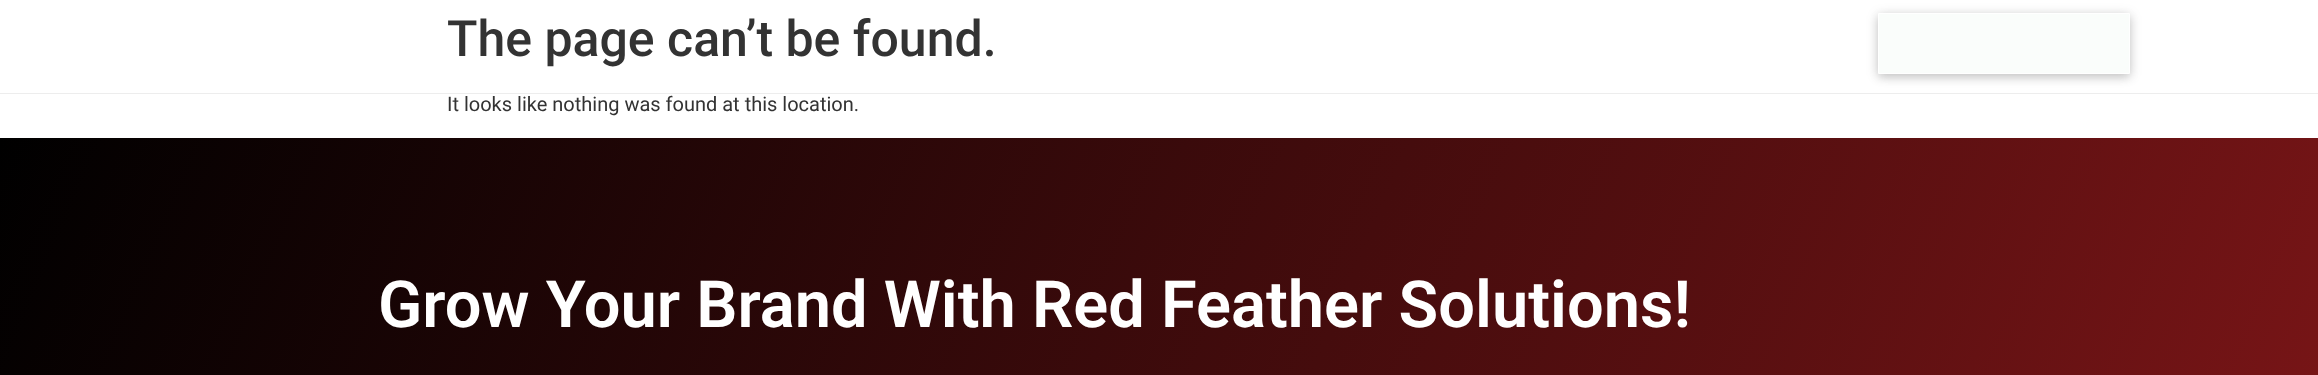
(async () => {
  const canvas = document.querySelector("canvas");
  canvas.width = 2318;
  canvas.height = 375;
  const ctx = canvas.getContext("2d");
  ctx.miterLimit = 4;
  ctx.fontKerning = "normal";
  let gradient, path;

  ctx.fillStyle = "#ffffff";
  ctx.fillRect(0, 0, 2318, 375);
  ctx.fillStyle = "#ededed";
  ctx.fillRect(0, 93, 2318, 1);
  ctx.save();
  path = new Path2D("M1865 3H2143V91H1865ZM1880.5 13H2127.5C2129 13 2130 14 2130 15.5V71.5C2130 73 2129 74 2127.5 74H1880.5C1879 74 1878 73 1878 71.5V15.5C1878 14 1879 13 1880.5 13Z");
  ctx.clip(path, "evenodd");
  ctx.fillStyle = "rgba(0, 0, 0, 0.1)";
  ctx.filter = "blur(4px)";
  ctx.beginPath();
  ctx.roundRect(1878, 16, 252, 62, 2.5);
  ctx.fill();
  ctx.filter = "none";
  ctx.restore();
  ctx.save();
  path = new Path2D("M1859 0H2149V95H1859ZM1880.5 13H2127.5C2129 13 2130 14 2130 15.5V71.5C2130 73 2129 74 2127.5 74H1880.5C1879 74 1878 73 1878 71.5V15.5C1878 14 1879 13 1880.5 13Z");
  ctx.clip(path, "evenodd");
  ctx.fillStyle = "rgba(0, 0, 0, 0.16)";
  ctx.filter = "blur(6px)";
  ctx.beginPath();
  ctx.roundRect(1878, 15, 252, 61, 2.5);
  ctx.fill();
  ctx.filter = "none";
  ctx.restore();
  ctx.fillStyle = "rgba(97, 206, 112, 0.03)";
  ctx.beginPath();
  ctx.rect(1878.5, 13.5, 251, 60);
  ctx.fill();
  ctx.strokeStyle = "#ffffff";
  ctx.stroke();
  gradient = ctx.createLinearGradient(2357, 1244, -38, 227);
  gradient.addColorStop(0, "#8a181a");
  gradient.addColorStop(1, "#000000");
  ctx.fillStyle = gradient;
  ctx.fillRect(0, 138, 2318, 237);
  ctx.font = "500 50px Roboto";
  ctx.fillStyle = "#333333";
  ctx.fillText("The page can’t be found.", 447, 56);
  ctx.font = "20px Roboto";
  ctx.fillText("It looks like nothing was found at this location.", 447, 111);
  ctx.font = "600 65px Roboto";
  ctx.fillStyle = "#ffffff";
  ctx.fillText("Grow Your Brand With Red Feather Solutions!", 378, 327);
})();
